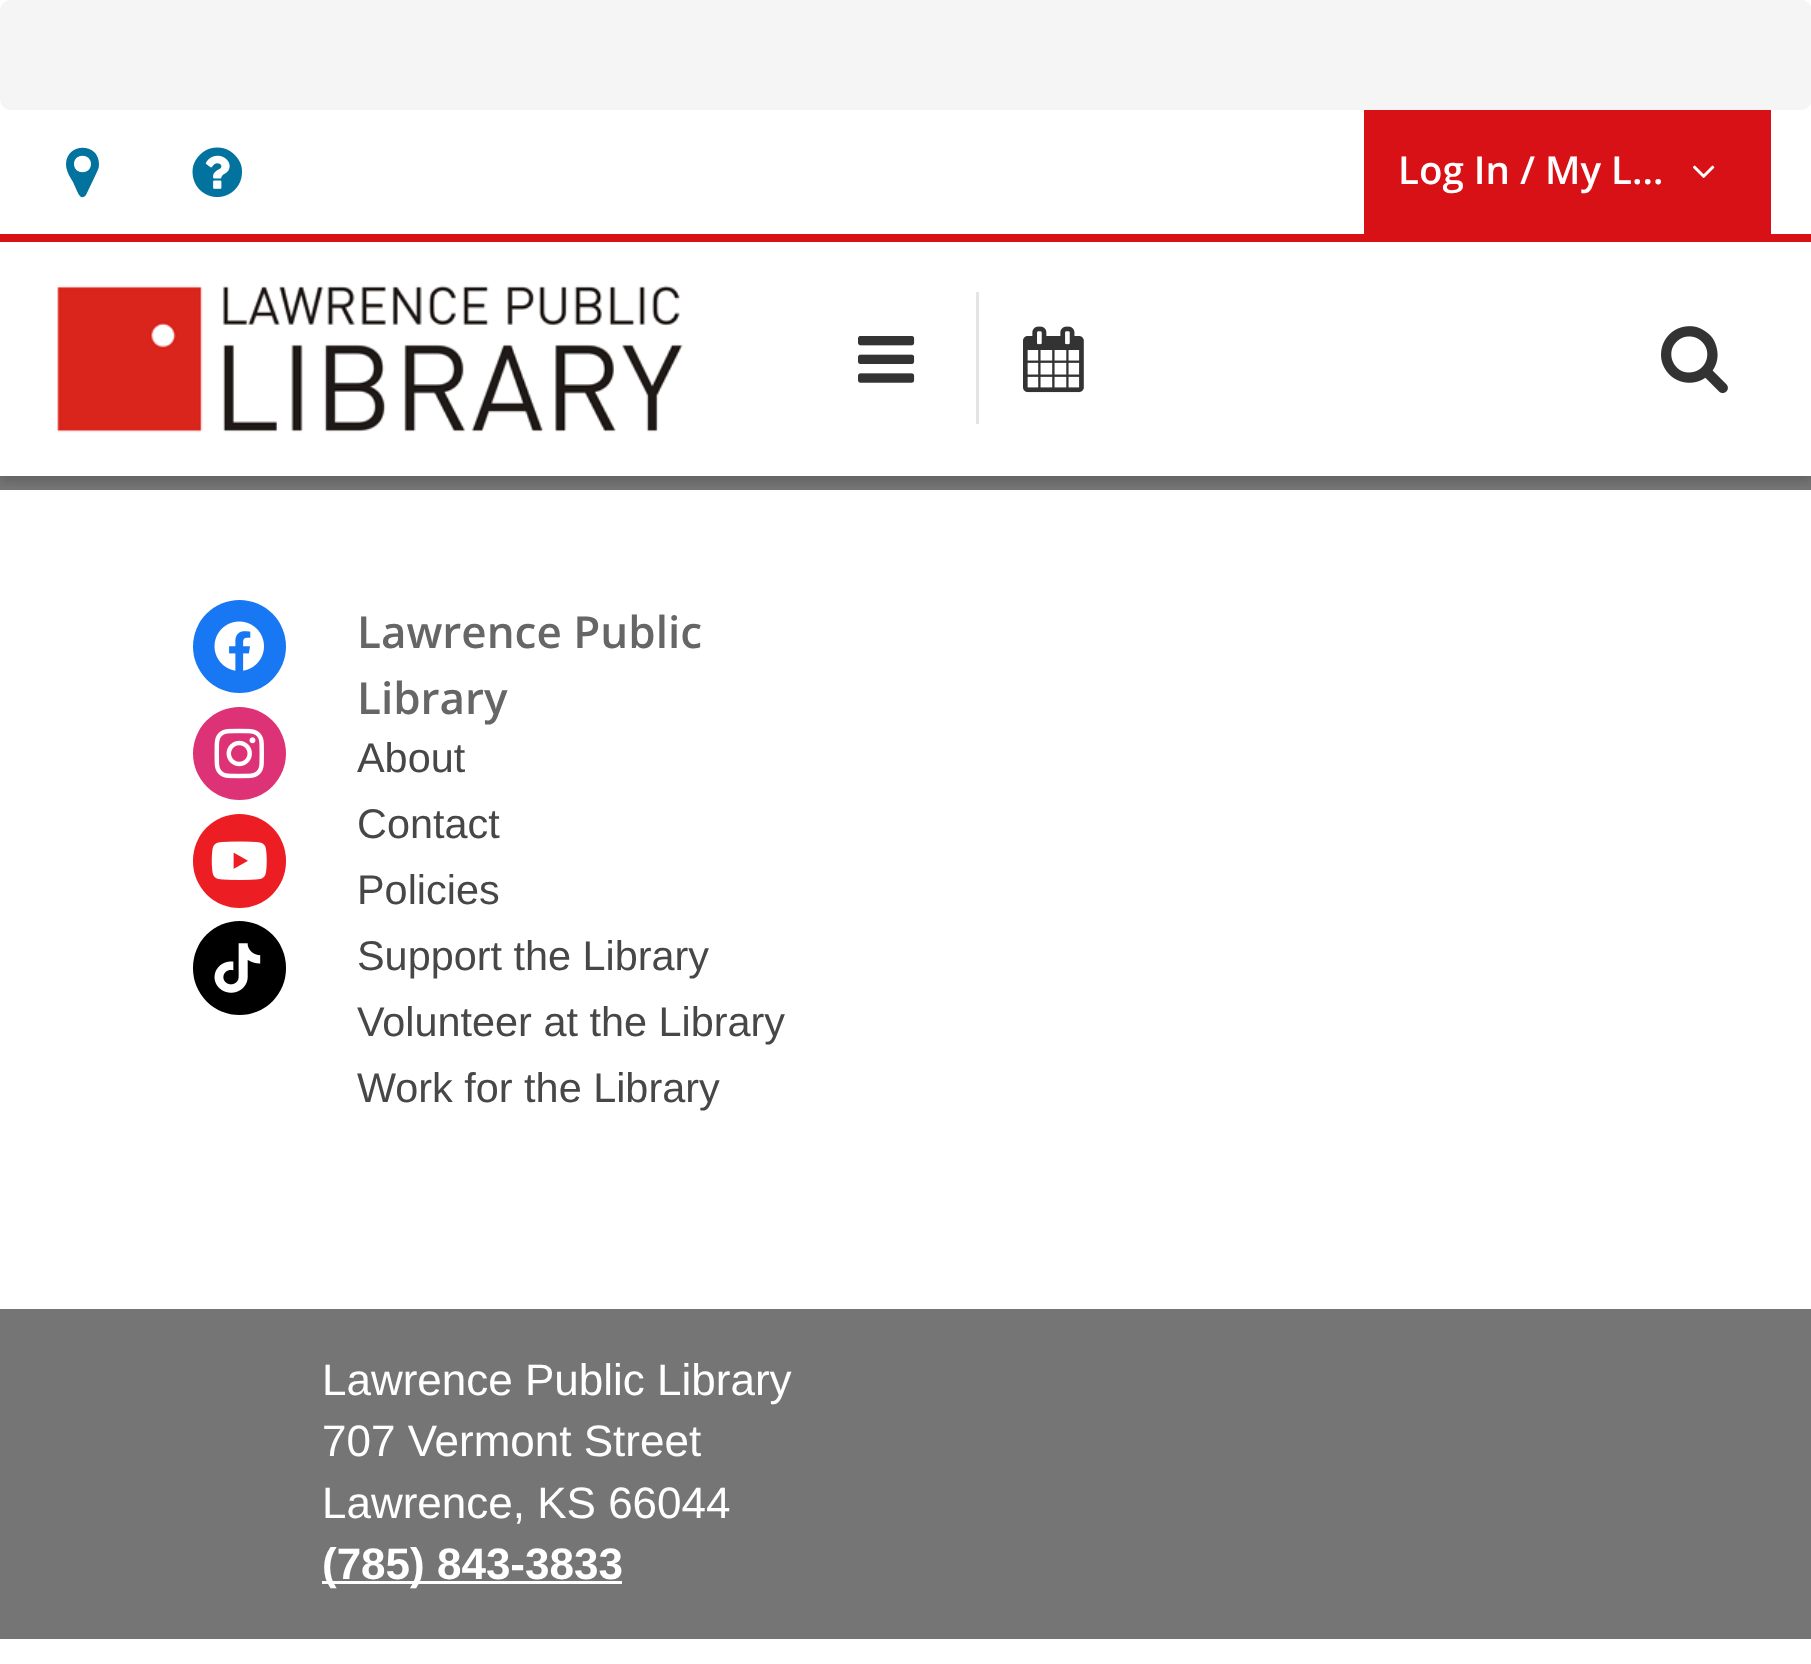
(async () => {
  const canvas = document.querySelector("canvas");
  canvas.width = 1811;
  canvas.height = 1664;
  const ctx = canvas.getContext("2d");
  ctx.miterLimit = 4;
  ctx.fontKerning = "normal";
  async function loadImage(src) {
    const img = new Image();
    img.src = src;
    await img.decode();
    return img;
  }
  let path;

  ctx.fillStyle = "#ffffff";
  ctx.fillRect(0, 0, 1811, 1664);
  ctx.fillStyle = "#757575";
  ctx.fillRect(0, 476, 1811, 14);
  ctx.save();
  ctx.beginPath();
  ctx.rect(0, 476, 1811, 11);
  ctx.clip();
  ctx.fillStyle = "rgba(0, 0, 0, 0.16)";
  ctx.filter = "blur(5.5px)";
  ctx.beginPath();
  ctx.rect(0, 6, 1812, 475);
  ctx.fill();
  ctx.filter = "none";
  ctx.restore();
  ctx.fillStyle = "#d81116";
  ctx.fillRect(0, 234, 1811, 8);
  ctx.fillStyle = "#f5f5f5";
  ctx.beginPath();
  ctx.roundRect(0, 0, 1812, 110, 11);
  ctx.fill();
  ctx.fillStyle = "#02729e";
  path = new Path2D("M91 164C91 153 74 153 74 164C74 175 91 175 91 164ZM99 164C99 168 98 170 96 174L86 195C81 201 78 193 77 191L73 182C70 177 66 171 66 164C67 142 99 143 99 164Z");
  ctx.fill(path);
  ctx.drawImage(await loadImage("img/1.png"), 192, 147, 50, 51);
  ctx.fillStyle = "#d81116";
  ctx.fillRect(1364, 110, 407, 124);
  ctx.drawImage(await loadImage("img/2.png"), 1693, 165, 22, 13);
  ctx.fillStyle = "#ffffff";
  ctx.fillRect(0, 475, 1811, 1);
  ctx.drawImage(await loadImage("img/3.png"), 57, 285, 626, 148);
  ctx.drawImage(await loadImage("img/4.png"), 858, 336, 57, 47);
  ctx.fillStyle = "#e4e4e4";
  ctx.fillRect(976, 292, 3, 132);
  ctx.drawImage(await loadImage("img/5.png"), 1023, 326, 61, 67);
  ctx.drawImage(await loadImage("img/6.png"), 1661, 326, 67, 68);
  ctx.fillStyle = "#1877f2";
  ctx.beginPath();
  ctx.arc(239.5, 646.5, 46.5, 0, Math.PI * 2);
  ctx.fill();
  ctx.drawImage(await loadImage("img/7.png"), 214, 621, 50, 50);
  ctx.fillStyle = "#dd3275";
  ctx.beginPath();
  ctx.arc(239.5, 753.5, 46.5, 0, Math.PI * 2);
  ctx.fill();
  ctx.drawImage(await loadImage("img/8.png"), 214, 728, 50, 51);
  ctx.fillStyle = "#ed1d24";
  ctx.beginPath();
  ctx.roundRect(193, 814, 93, 94, 46.5);
  ctx.fill();
  ctx.drawImage(await loadImage("img/9.png"), 211, 841, 56, 39);
  ctx.fillStyle = "#000000";
  ctx.beginPath();
  ctx.roundRect(193, 921, 93, 94, 46.5);
  ctx.fill();
  ctx.drawImage(await loadImage("img/10.png"), 214, 943, 47, 50);
  ctx.fillStyle = "#757575";
  ctx.fillRect(0, 1309, 1811, 330);
  ctx.fillStyle = "#ffffff";
  ctx.fillRect(322, 1581, 300, 3);
  ctx.font = "600 38.5px Open Sans";
  ctx.fillText("Log In / My L…", 1398, 184);
  ctx.font = "600 44px Open Sans";
  ctx.fillStyle = "#666666";
  ctx.fillText("Lawrence Public", 357, 648);
  ctx.fillText("Library", 357, 714);
  ctx.font = "41.4px Liberation Sans";
  ctx.fillStyle = "#474747";
  for (const [text, x, y] of [
    ["About", 357, 772],
    ["Contact", 357, 838],
    ["Policies", 357, 904],
    ["Support the Library", 357, 970],
    ["Volunteer at the Library", 357, 1036],
    ["Work for the Library", 357, 1102],
  ]) {
    ctx.fillText(text, x, y);
  }
  ctx.font = "44px Liberation Sans";
  ctx.fillStyle = "#ffffff";
  for (const [text, x, y] of [
    ["Lawrence Public Library", 322, 1395],
    ["707 Vermont Street", 322, 1456],
    ["Lawrence, KS 66044", 322, 1518],
  ]) {
    ctx.fillText(text, x, y);
  }
  ctx.font = "bold 44px Liberation Sans";
  ctx.fillText("(785) 843-3833", 322, 1579);
})();
